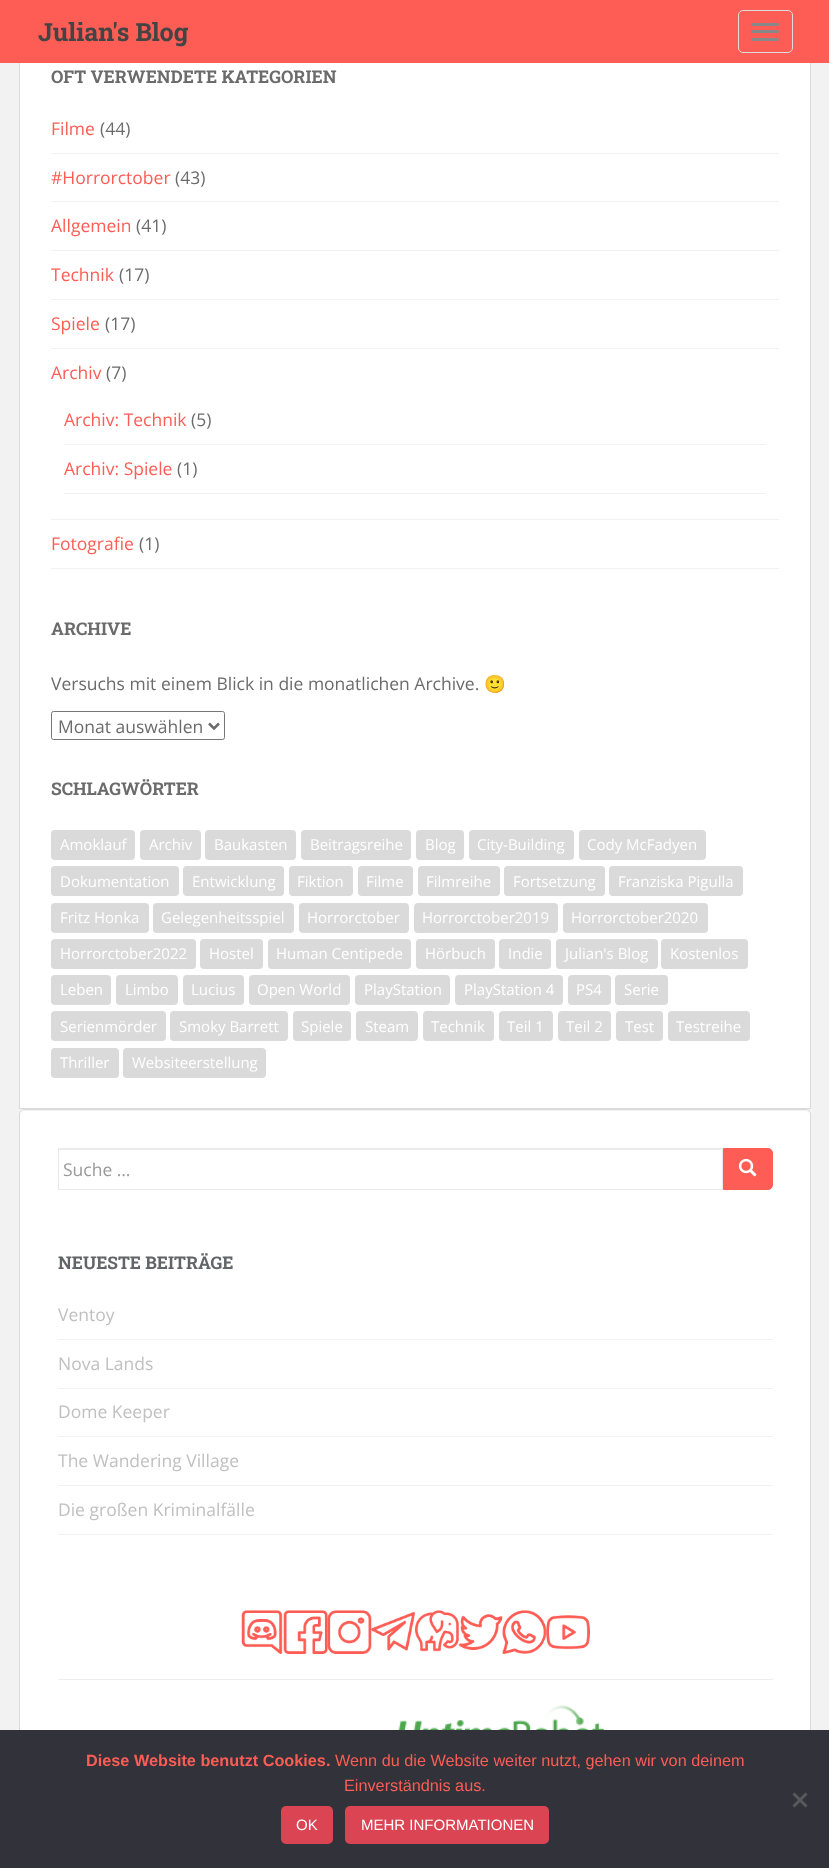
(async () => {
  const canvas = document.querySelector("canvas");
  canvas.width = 829;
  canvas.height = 1868;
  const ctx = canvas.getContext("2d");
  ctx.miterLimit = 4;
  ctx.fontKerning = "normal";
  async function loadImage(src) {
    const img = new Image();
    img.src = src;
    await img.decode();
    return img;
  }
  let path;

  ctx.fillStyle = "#f2f2f2";
  ctx.fillRect(0, 0, 829, 1868);
  ctx.fillStyle = "#ffffff";
  ctx.fillRect(20, 63, 790, 1045);
  ctx.strokeStyle = "#dadada";
  ctx.strokeRect(19.5, -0.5, 791, 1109);
  ctx.fillStyle = "#fe5d55";
  ctx.fillRect(0, 0, 829, 63);
  ctx.beginPath();
  ctx.roundRect(738.5, 10.5, 54, 42, 4.5);
  ctx.strokeStyle = "#dddddd";
  ctx.stroke();
  ctx.fillStyle = "#888888";
  ctx.beginPath();
  ctx.roundRect(751, 23, 28, 3, 1.5);
  ctx.fill();
  ctx.beginPath();
  ctx.roundRect(751, 30, 28, 3, 1.5);
  ctx.fill();
  ctx.beginPath();
  ctx.roundRect(751, 38, 28, 3, 1.5);
  ctx.fill();
  for (const [x, y, w, h, color] of [
    [51, 153, 728, 1, "#f2f2f2"],
    [51, 201, 728, 1, "#f2f2f2"],
    [51, 250, 728, 1, "#f2f2f2"],
    [51, 299, 728, 1, "#f2f2f2"],
    [51, 348, 728, 1, "#f2f2f2"],
    [51, 519, 728, 1, "#f2f2f2"],
    [64, 444, 702, 1, "#f2f2f2"],
    [64, 493, 702, 1, "#f2f2f2"],
    [51, 568, 728, 1, "#f2f2f2"],
  ]) {
    ctx.fillStyle = color;
    ctx.fillRect(x, y, w, h);
  }
  ctx.beginPath();
  ctx.roundRect(51.5, 711.5, 173, 28, 2);
  ctx.strokeStyle = "#767676";
  ctx.stroke();
  path = new Path2D("M209 723.5L214 728.5L219 723.5");
  ctx.strokeStyle = "#6b6b6b";
  ctx.lineWidth = 2.5;
  ctx.stroke(path);
  ctx.fillStyle = "#dadada";
  ctx.beginPath();
  ctx.roundRect(51, 830, 84, 30, 4);
  ctx.fill();
  ctx.beginPath();
  ctx.roundRect(140, 830, 61, 30, 4);
  ctx.fill();
  ctx.beginPath();
  ctx.roundRect(205, 830, 91, 30, 4);
  ctx.fill();
  ctx.beginPath();
  ctx.roundRect(301, 830, 110, 30, 4);
  ctx.fill();
  ctx.beginPath();
  ctx.roundRect(416, 830, 48, 30, 4);
  ctx.fill();
  ctx.beginPath();
  ctx.roundRect(469, 830, 105, 30, 4);
  ctx.fill();
  ctx.beginPath();
  ctx.roundRect(579, 830, 127, 30, 4);
  ctx.fill();
  ctx.beginPath();
  ctx.roundRect(51, 866, 128, 30, 4);
  ctx.fill();
  ctx.beginPath();
  ctx.roundRect(183, 866, 101, 30, 4);
  ctx.fill();
  ctx.beginPath();
  ctx.roundRect(289, 866, 64, 30, 4);
  ctx.fill();
  ctx.beginPath();
  ctx.roundRect(358, 866, 55, 30, 4);
  ctx.fill();
  ctx.beginPath();
  ctx.roundRect(418, 866, 82, 30, 4);
  ctx.fill();
  ctx.beginPath();
  ctx.roundRect(504, 866, 101, 30, 4);
  ctx.fill();
  ctx.beginPath();
  ctx.roundRect(609, 866, 134, 30, 4);
  ctx.fill();
  ctx.beginPath();
  ctx.roundRect(51, 903, 98, 30, 4);
  ctx.fill();
  ctx.beginPath();
  ctx.roundRect(153, 903, 141, 30, 4);
  ctx.fill();
  ctx.beginPath();
  ctx.roundRect(299, 903, 110, 30, 4);
  ctx.fill();
  ctx.beginPath();
  ctx.roundRect(414, 903, 144, 30, 4);
  ctx.fill();
  ctx.beginPath();
  ctx.roundRect(563, 903, 145, 30, 4);
  ctx.fill();
  ctx.beginPath();
  ctx.roundRect(51, 939, 145, 30, 4);
  ctx.fill();
  ctx.beginPath();
  ctx.roundRect(200, 939, 63, 30, 4);
  ctx.fill();
  ctx.beginPath();
  ctx.roundRect(268, 939, 143, 30, 4);
  ctx.fill();
  ctx.beginPath();
  ctx.roundRect(416, 939, 79, 30, 4);
  ctx.fill();
  ctx.beginPath();
  ctx.roundRect(499, 939, 52, 30, 4);
  ctx.fill();
  ctx.beginPath();
  ctx.roundRect(556, 939, 102, 30, 4);
  ctx.fill();
  ctx.beginPath();
  ctx.roundRect(661, 939, 87, 30, 4);
  ctx.fill();
  ctx.beginPath();
  ctx.roundRect(51, 975, 60, 30, 4);
  ctx.fill();
  ctx.beginPath();
  ctx.roundRect(116, 975, 62, 30, 4);
  ctx.fill();
  ctx.beginPath();
  ctx.roundRect(183, 975, 61, 30, 4);
  ctx.fill();
  ctx.beginPath();
  ctx.roundRect(249, 975, 101, 30, 4);
  ctx.fill();
  ctx.beginPath();
  ctx.roundRect(355, 975, 95, 30, 4);
  ctx.fill();
  ctx.beginPath();
  ctx.roundRect(455, 975, 108, 30, 4);
  ctx.fill();
  ctx.beginPath();
  ctx.roundRect(568, 975, 43, 30, 4);
  ctx.fill();
  ctx.beginPath();
  ctx.roundRect(615, 975, 53, 30, 4);
  ctx.fill();
  ctx.beginPath();
  ctx.roundRect(51, 1011, 115, 30, 4);
  ctx.fill();
  ctx.beginPath();
  ctx.roundRect(170, 1011, 118, 30, 4);
  ctx.fill();
  ctx.beginPath();
  ctx.roundRect(293, 1011, 58, 30, 4);
  ctx.fill();
  ctx.beginPath();
  ctx.roundRect(356, 1011, 62, 30, 4);
  ctx.fill();
  ctx.beginPath();
  ctx.roundRect(423, 1011, 71, 30, 4);
  ctx.fill();
  ctx.beginPath();
  ctx.roundRect(499, 1011, 54, 30, 4);
  ctx.fill();
  ctx.beginPath();
  ctx.roundRect(558, 1011, 53, 30, 4);
  ctx.fill();
  ctx.beginPath();
  ctx.roundRect(616, 1011, 47, 30, 4);
  ctx.fill();
  ctx.beginPath();
  ctx.roundRect(668, 1011, 82, 30, 4);
  ctx.fill();
  ctx.beginPath();
  ctx.roundRect(51, 1048, 68, 30, 4);
  ctx.fill();
  ctx.beginPath();
  ctx.roundRect(123, 1048, 143, 30, 4);
  ctx.fill();
  ctx.fillStyle = "#ffffff";
  ctx.beginPath();
  ctx.roundRect(19, 1109, 792, 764, 5);
  ctx.fill();
  ctx.fillStyle = "#f2f2f2";
  path = new Path2D("M24 1111H806C808 1111 810 1113 810 1115V1114C810 1112 808 1110 806 1110H24C22 1110 20 1112 20 1114V1115C20 1113 22 1111 24 1111Z");
  ctx.fill(path);
  ctx.beginPath();
  ctx.roundRect(19.5, 1109.5, 791, 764, 4.5);
  ctx.strokeStyle = "#dadada";
  ctx.lineWidth = 1;
  ctx.stroke();
  ctx.fillStyle = "#ececec";
  ctx.fillRect(59, 1149, 662, 1);
  ctx.strokeStyle = "#e8e8e8";
  ctx.strokeRect(58.5, 1148.5, 664, 41);
  ctx.fillStyle = "#fe5d55";
  ctx.beginPath();
  ctx.roundRect(723.5, 1148.5, 49, 41, [0, 4.5, 4.5, 0]);
  ctx.fill();
  ctx.strokeStyle = "#fe5d55";
  ctx.stroke();
  ctx.drawImage(await loadImage("img/1.png"), 738, 1158, 19, 19);
  for (const [x, y, w, h, color] of [
    [58, 1339, 715, 1, "#f2f2f2"],
    [58, 1388, 715, 1, "#f2f2f2"],
    [58, 1436, 715, 1, "#f2f2f2"],
    [58, 1485, 715, 1, "#f2f2f2"],
    [58, 1534, 715, 1, "#f2f2f2"],
  ]) {
    ctx.fillStyle = color;
    ctx.fillRect(x, y, w, h);
  }
  ctx.drawImage(await loadImage("img/2.png"), 241, 1610, 42, 44);
  ctx.drawImage(await loadImage("img/3.png"), 283, 1610, 45, 44);
  ctx.drawImage(await loadImage("img/4.png"), 327, 1610, 45, 44);
  ctx.drawImage(await loadImage("img/5.png"), 371, 1611, 44, 40);
  ctx.drawImage(await loadImage("img/6.png"), 415, 1610, 44, 42);
  ctx.drawImage(await loadImage("img/7.png"), 458, 1614, 45, 36);
  ctx.drawImage(await loadImage("img/8.png"), 502, 1610, 45, 44);
  ctx.drawImage(await loadImage("img/9.png"), 546, 1615, 44, 35);
  ctx.fillStyle = "#eeeeee";
  ctx.fillRect(58, 1679, 715, 1);
  ctx.drawImage(await loadImage("img/10.png"), 398, 1705, 206, 25);
  ctx.fillStyle = "#32323a";
  ctx.fillRect(0, 1730, 829, 138);
  ctx.fillStyle = "#59595d";
  path = new Path2D("M805.5 1792.5L807.5 1794.5L794.5 1807.5L792.5 1805.5Z");
  ctx.fill(path);
  path = new Path2D("M792.5 1794.5L794.5 1792.5L807.5 1805.5L805.5 1807.5Z");
  ctx.fill(path);
  ctx.fillStyle = "#da4453";
  ctx.beginPath();
  ctx.roundRect(281, 1806, 52, 38, 5);
  ctx.fill();
  ctx.beginPath();
  ctx.roundRect(345, 1806, 204, 38, 5);
  ctx.fill();
  ctx.font = "bold 25px Roboto Slab";
  ctx.fillStyle = "#444444";
  ctx.fillText("Julian's Blog", 38, 41);
  ctx.font = "bold 17.5px Roboto Slab";
  ctx.fillStyle = "#6b6b6b";
  ctx.fillText("OFT VERWENDETE KATEGORIEN", 51, 83);
  ctx.font = "17.5px Open Sans";
  ctx.fillStyle = "#fe5d55";
  ctx.fillText("Filme", 51, 135);
  ctx.fillStyle = "#6b6b6b";
  ctx.fillText("(44)", 100, 135);
  ctx.fillStyle = "#fe5d55";
  ctx.fillText("#Horrorctober", 51, 184);
  ctx.fillStyle = "#6b6b6b";
  ctx.fillText("(43)", 175, 184);
  ctx.fillStyle = "#fe5d55";
  ctx.fillText("Allgemein", 51, 232);
  ctx.fillStyle = "#6b6b6b";
  ctx.fillText("(41)", 136, 232);
  ctx.fillStyle = "#fe5d55";
  ctx.fillText("Technik", 51, 281);
  ctx.fillStyle = "#6b6b6b";
  ctx.fillText("(17)", 119, 281);
  ctx.fillStyle = "#fe5d55";
  ctx.fillText("Spiele", 51, 330);
  ctx.fillStyle = "#6b6b6b";
  ctx.fillText("(17)", 105, 330);
  ctx.fillStyle = "#fe5d55";
  ctx.fillText("Archiv", 51, 379);
  ctx.fillStyle = "#6b6b6b";
  ctx.fillText("(7)", 106, 379);
  ctx.fillStyle = "#fe5d55";
  ctx.fillText("Archiv: Technik", 64, 426);
  ctx.fillStyle = "#6b6b6b";
  ctx.fillText("(5)", 191, 426);
  ctx.fillStyle = "#fe5d55";
  ctx.fillText("Archiv: Spiele", 64, 475);
  ctx.fillStyle = "#6b6b6b";
  ctx.fillText("(1)", 177, 475);
  ctx.fillStyle = "#fe5d55";
  ctx.fillText("Fotografie", 51, 550);
  ctx.fillStyle = "#6b6b6b";
  ctx.fillText("(1)", 139, 550);
  ctx.font = "bold 17.5px Roboto Slab";
  ctx.fillText("ARCHIVE", 51, 635);
  ctx.font = "17.5px Open Sans";
  ctx.fillText("Versuchs mit einem Blick in die monatlichen Archive.", 51, 690);
  ctx.font = "17.5px Noto Color Emoji";
  ctx.fillText("🙂", 484, 690);
  ctx.font = "17.5px Open Sans";
  ctx.fillText("Monat auswählen", 58, 733);
  ctx.font = "bold 17.5px Roboto Slab";
  ctx.fillText("SCHLAGWÖRTER", 51, 795);
  ctx.font = "15px Open Sans";
  ctx.fillStyle = "#ffffff";
  for (const [text, x, y] of [
    ["Amoklauf", 60, 850],
    ["Archiv", 149, 850],
    ["Baukasten", 214, 850],
    ["Beitragsreihe", 310, 850],
    ["Blog", 425, 850],
    ["City-Building", 477, 850],
    ["Cody McFadyen", 587, 850],
    ["Dokumentation", 60, 887],
    ["Entwicklung", 192, 887],
    ["Fiktion", 297, 887],
    ["Filme", 366, 887],
    ["Filmreihe", 426, 887],
    ["Fortsetzung", 513, 887],
    ["Franziska Pigulla", 618, 887],
    ["Fritz Honka", 60, 923],
    ["Gelegenheitsspiel", 161, 923],
    ["Horrorctober", 307, 923],
    ["Horrorctober2019", 422, 923],
    ["Horrorctober2020", 571, 923],
    ["Horrorctober2022", 60, 959],
    ["Hostel", 209, 959],
    ["Human Centipede", 276, 959],
    ["Hörbuch", 425, 959],
    ["Indie", 508, 959],
    ["Julian's Blog", 565, 959],
    ["Kostenlos", 670, 959],
    ["Leben", 60, 995],
    ["Limbo", 125, 995],
    ["Lucius", 191, 995],
    ["Open World", 257, 995],
    ["PlayStation", 364, 995],
    ["PlayStation 4", 464, 995],
    ["PS4", 576, 995],
    ["Serie", 624, 995],
    ["Serienmörder", 60, 1032],
    ["Smoky Barrett", 179, 1032],
    ["Spiele", 301, 1032],
    ["Steam", 365, 1032],
    ["Technik", 431, 1032],
    ["Teil 1", 507, 1032],
    ["Teil 2", 566, 1032],
    ["Test", 625, 1032],
    ["Testreihe", 676, 1032],
    ["Thriller", 60, 1068],
    ["Websiteerstellung", 132, 1068],
  ]) {
    ctx.fillText(text, x, y);
  }
  ctx.font = "17.5px Open Sans";
  ctx.fillStyle = "#999999";
  ctx.fillText("Suche …", 63, 1176);
  ctx.font = "bold 17.5px Roboto Slab";
  ctx.fillStyle = "#636467";
  ctx.fillText("NEUESTE BEITRÄGE", 58, 1269);
  ctx.font = "17.5px Open Sans";
  ctx.fillStyle = "#c1c0c0";
  for (const [text, x, y] of [
    ["Ventoy", 58, 1321],
    ["Nova Lands", 58, 1370],
    ["Dome Keeper", 58, 1418],
    ["The Wandering Village", 58, 1467],
    ["Die großen Kriminalfälle", 58, 1516],
  ]) {
    ctx.fillText(text, x, y);
  }
  ctx.font = "bold 16.25px Liberation Sans";
  ctx.fillStyle = "#fe5d55";
  ctx.fillText("Diese Website benutzt Cookies.", 86, 1766);
  ctx.font = "16.25px Liberation Sans";
  ctx.fillText("Wenn du die Website weiter nutzt, gehen wir von deinem", 335, 1766);
  ctx.fillText("Einverständnis aus.", 344, 1791);
  ctx.font = "15px Liberation Sans";
  ctx.fillStyle = "#ffffff";
  ctx.fillText("OK", 296, 1830);
  ctx.fillText("MEHR INFORMATIONEN", 361, 1830);
})();
